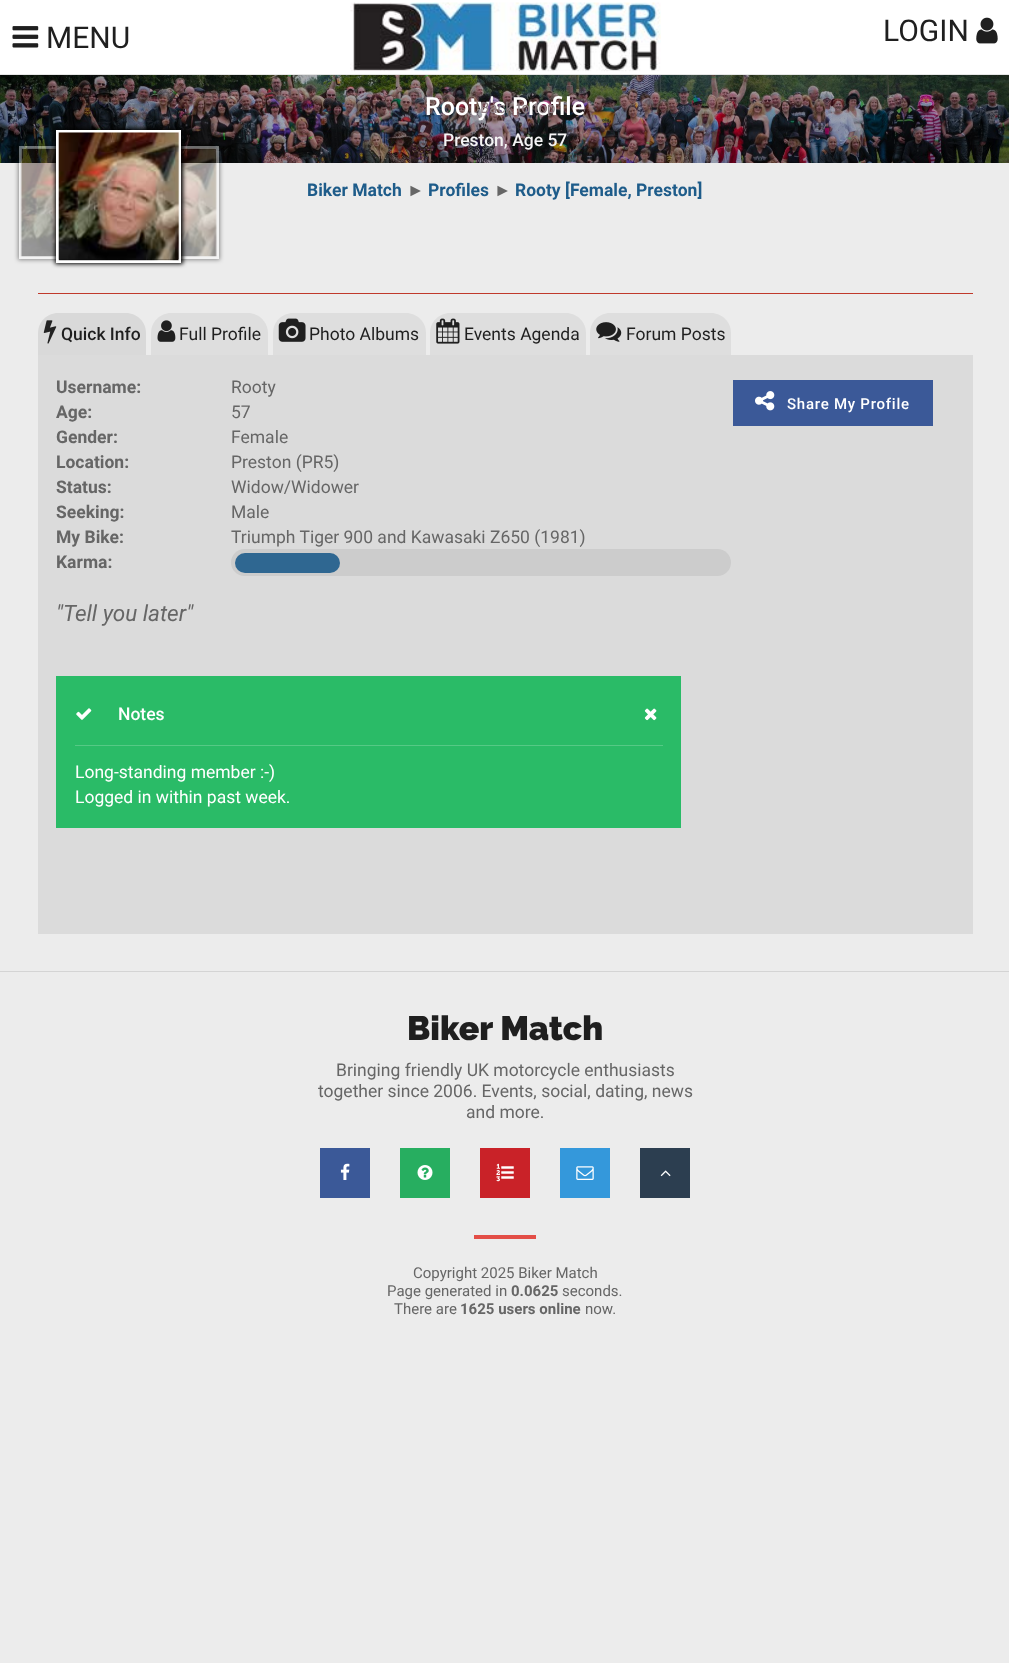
<svg xmlns="http://www.w3.org/2000/svg" width="1009" height="1663" viewBox="0 0 1009 1663">
  <defs>
    <clipPath id="clip1"><path d="M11 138H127V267H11ZM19 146H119V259H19Z" clip-rule="evenodd"/></clipPath>
    <filter id="blur1" x="-50%" y="-200%" width="200%" height="500%"><feGaussianBlur stdDeviation="2"/></filter>
    <clipPath id="clip2"><path d="M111 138H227V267H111ZM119 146H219V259H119Z" clip-rule="evenodd"/></clipPath>
  </defs>
  <rect width="100%" height="100%" fill="#ececec"/>
  <rect x="0" y="0" width="1009" height="74" fill="#ffffff"/>
  <rect x="0" y="74" width="1009" height="1" fill="#e6e6e6"/>
  <image x="12" y="26" width="27" height="22" href="img1.png"/>
  <text x="46" y="48" font-family="Roboto" font-size="30" fill="#1f1f1f">MENU</text>
  <image x="350" y="2" width="311" height="70" href="img2.png"/>
  <text x="883" y="41" font-family="Roboto" font-size="30" fill="#1f1f1f">LOGIN</text>
  <image x="976" y="17" width="22" height="27" href="img3.png"/>
  <image x="0" y="75" width="1009" height="88" href="img4.png"/>
  <text x="425" y="115" font-family="Roboto" font-size="25" font-weight="500" fill="#ffffff">Rooty's Profile</text>
  <text x="443" y="146" font-family="Roboto" font-size="17.5" font-weight="500" fill="#f5f4f5">Preston, Age 57</text>
  <text x="307" y="196" font-family="Roboto" font-size="17.5" font-weight="bold" fill="#1e5c8a">Biker Match</text>
  <text x="407" y="196" font-family="Liberation Sans" font-size="17.5" font-weight="bold" fill="#666666">►</text>
  <text x="428" y="196" font-family="Roboto" font-size="17.5" font-weight="bold" fill="#1e5c8a">Profiles</text>
  <text x="494" y="196" font-family="Liberation Sans" font-size="17.5" font-weight="bold" fill="#666666">►</text>
  <text x="515" y="196" font-family="Roboto" font-size="17.5" font-weight="bold" fill="#1e5c8a">Rooty [Female, Preston]</text>
  <g clip-path="url(#clip1)">
    <rect x="18" y="145" width="102" height="115" fill="#000000" fill-opacity="0.4" filter="url(#blur1)"/>
  </g>
  <rect x="20.5" y="147.5" width="97" height="110" fill="none" stroke="#ffffff" stroke-opacity="0.4" stroke-width="3"/>
  <image x="20" y="148" width="40" height="109" href="img6.png"/>
  <g clip-path="url(#clip2)">
    <rect x="118" y="145" width="102" height="115" fill="#000000" fill-opacity="0.4" filter="url(#blur1)"/>
  </g>
  <rect x="120.5" y="147.5" width="97" height="110" fill="none" stroke="#ffffff" stroke-opacity="0.4" stroke-width="3"/>
  <image x="181" y="148" width="36" height="109" href="img7.png"/>
  <rect x="55" y="129" width="128" height="135" fill="#000000" filter="url(#blur1)"/>
  <rect x="57.5" y="131.5" width="122" height="130" fill="none" stroke="#ffffff" stroke-width="3"/>
  <image x="58" y="132" width="122" height="129" href="img5.png"/>
  <rect x="38" y="293" width="935" height="1" fill="#c0392b"/>
  <path d="M58 313H126C137 313 146 322 146 333V355H38V333C38 322 47 313 58 313Z" fill="#d9d9d9"/>
  <image x="43" y="320" width="14" height="24" href="img8.png"/>
  <text x="61" y="340" font-family="Roboto" font-size="17.5" font-weight="500" fill="#1f1f1f">Quick Info</text>
  <path d="M171 313H248C259 313 268 322 268 333V355H151V333C151 322 160 313 171 313Z" fill="#dedede"/>
  <image x="157" y="320" width="19" height="22" href="img9.png"/>
  <text x="179" y="340" font-family="Roboto" font-size="17.5" fill="#1f1f1f">Full Profile</text>
  <path d="M293 313H406C417 313 426 322 426 333V355H273V333C273 322 282 313 293 313Z" fill="#dedede"/>
  <image x="278" y="318" width="28" height="24" href="img10.png"/>
  <text x="309" y="340" font-family="Roboto" font-size="17.5" fill="#1f1f1f">Photo Albums</text>
  <path d="M450 313H566C577 313 586 322 586 333V355H430V333C430 322 439 313 450 313Z" fill="#dedede"/>
  <image x="436" y="318" width="24" height="26" href="img11.png"/>
  <text x="464" y="340" font-family="Roboto" font-size="17.5" fill="#1f1f1f">Events Agenda</text>
  <path d="M610 313H711C722 313 731 322 731 333V355H590V333C590 322 599 313 610 313Z" fill="#dedede"/>
  <image x="596" y="322" width="26" height="20" href="img12.png"/>
  <text x="626" y="340" font-family="Roboto" font-size="17.5" fill="#1f1f1f">Forum Posts</text>
  <rect x="38" y="355" width="935" height="579" fill="#dbdbdb"/>
  <text x="56" y="393" font-family="Roboto" font-size="17.5" font-weight="bold" fill="#666666">Username:</text>
  <text x="231" y="393" font-family="Roboto" font-size="17.5" fill="#666666">Rooty</text>
  <text x="56" y="418" font-family="Roboto" font-size="17.5" font-weight="bold" fill="#666666">Age:</text>
  <text x="231" y="418" font-family="Roboto" font-size="17.5" fill="#666666">57</text>
  <rect x="733" y="380" width="200" height="46" fill="#3b5998"/>
  <image x="755" y="391" width="20" height="20" href="img13.png"/>
  <text x="787" y="409" font-family="Roboto" font-size="15" font-weight="500" letter-spacing="0.75" fill="#ffffff">Share My Profile</text>
  <text x="56" y="443" font-family="Roboto" font-size="17.5" font-weight="bold" fill="#666666">Gender:</text>
  <text x="231" y="443" font-family="Roboto" font-size="17.5" fill="#666666">Female</text>
  <text x="56" y="468" font-family="Roboto" font-size="17.5" font-weight="bold" fill="#666666">Location:</text>
  <text x="231" y="468" font-family="Roboto" font-size="17.5" fill="#666666">Preston (PR5)</text>
  <text x="56" y="493" font-family="Roboto" font-size="17.5" font-weight="bold" fill="#666666">Status:</text>
  <text x="231" y="493" font-family="Roboto" font-size="17.5" fill="#666666">Widow/Widower</text>
  <text x="56" y="518" font-family="Roboto" font-size="17.5" font-weight="bold" fill="#666666">Seeking:</text>
  <text x="231" y="518" font-family="Roboto" font-size="17.5" fill="#666666">Male</text>
  <text x="56" y="543" font-family="Roboto" font-size="17.5" font-weight="bold" fill="#666666">My Bike:</text>
  <text x="231" y="543" font-family="Roboto" font-size="17.5" fill="#666666">Triumph Tiger 900 and Kawasaki Z650 (1981)</text>
  <text x="56" y="568" font-family="Roboto" font-size="17.5" font-weight="bold" fill="#666666">Karma:</text>
  <rect x="231" y="549" width="500" height="27" rx="13.5" fill="#cccccc"/>
  <rect x="235" y="553" width="105" height="20" rx="10" fill="#2f6791"/>
  <text x="56" y="621" font-family="Roboto" font-size="22.5" font-style="italic" fill="#666666">"Tell you later"</text>
  <rect x="56" y="676" width="625" height="152" fill="#2abb67"/>
  <rect x="75" y="745" width="588" height="1" fill="#55c985"/>
  <image x="76" y="708" width="16" height="12" href="img14.png"/>
  <text x="118" y="720" font-family="Roboto" font-size="17.5" font-weight="500" fill="#ffffff">Notes</text>
  <image x="644" y="708" width="13" height="13" href="img15.png"/>
  <text x="75" y="778" font-family="Roboto" font-size="17.5" fill="#ffffff">Long-standing member :-)</text>
  <text x="75" y="803" font-family="Roboto" font-size="17.5" fill="#ffffff">Logged in within past week.</text>
  <rect x="0" y="971" width="1009" height="1" fill="#d4d4d4"/>
  <text x="407" y="1040" font-family="Raleway" font-size="33.75" font-weight="900" fill="#1f1f1f">Biker Match</text>
  <text x="336" y="1076" font-family="Roboto" font-size="17.5" fill="#666666">Bringing friendly UK motorcycle enthusiasts</text>
  <text x="318" y="1097" font-family="Roboto" font-size="17.5" fill="#666666">together since 2006. Events, social, dating, news</text>
  <text x="466" y="1118" font-family="Roboto" font-size="17.5" fill="#666666">and more.</text>
  <rect x="320" y="1148" width="50" height="50" fill="#3b5998"/>
  <image x="340" y="1163" width="10" height="17" href="img16.png"/>
  <rect x="400" y="1148" width="50" height="50" fill="#27ae60"/>
  <image x="417" y="1165" width="16" height="15" href="img17.png"/>
  <rect x="480" y="1148" width="50" height="50" fill="#c92228"/>
  <image x="496" y="1163" width="18" height="19" href="img18.png"/>
  <rect x="560" y="1148" width="50" height="50" fill="#3498db"/>
  <image x="576" y="1166" width="18" height="14" href="img19.png"/>
  <rect x="640" y="1148" width="50" height="50" fill="#2c3e50"/>
  <image x="660" y="1170" width="11" height="7" href="img20.png"/>
  <rect x="474" y="1235" width="62" height="4" fill="#e34e47"/>
  <text x="413" y="1278" font-family="Roboto" font-size="15" fill="#666666">Copyright 2025 Biker Match</text>
  <text x="387" y="1296" font-family="Roboto" font-size="15" fill="#666666">Page generated in</text>
  <text x="511" y="1296" font-family="Roboto" font-size="15" font-weight="bold" fill="#666666">0.0625</text>
  <text x="562" y="1296" font-family="Roboto" font-size="15" fill="#666666">seconds.</text>
  <text x="394" y="1314" font-family="Roboto" font-size="15" fill="#666666">There are</text>
  <text x="460" y="1314" font-family="Roboto" font-size="15" font-weight="bold" fill="#666666">1625 users online</text>
  <text x="585" y="1314" font-family="Roboto" font-size="15" fill="#666666">now.</text>
  <text x="480" y="113" font-family="Roboto" font-size="15" fill="#8e8085">Back to top</text>
</svg>
